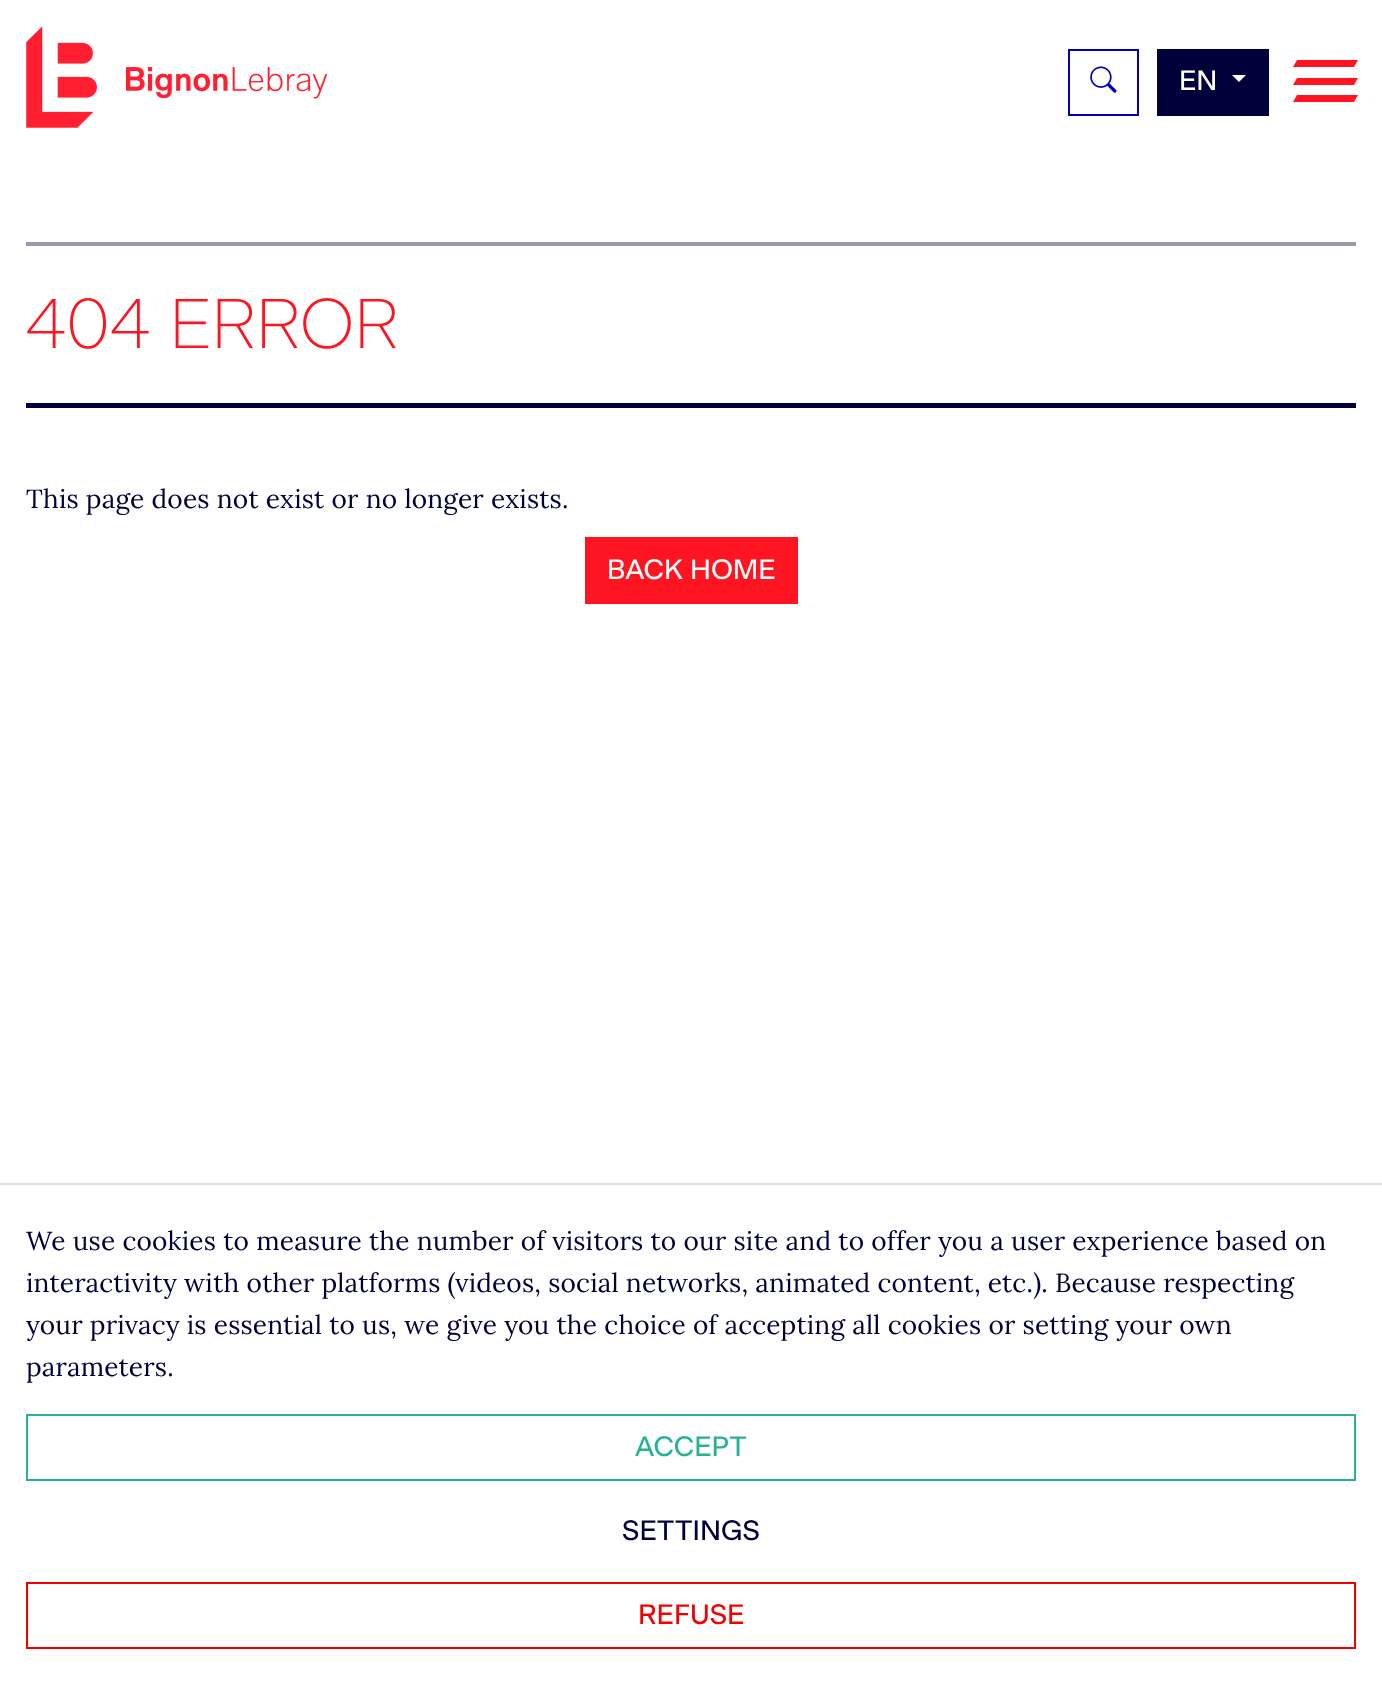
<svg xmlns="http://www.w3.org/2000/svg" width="1382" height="1682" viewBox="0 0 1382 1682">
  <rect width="100%" height="100%" fill="#ffffff"/>
  <image x="26" y="26" width="71" height="102" href="img1.png"/>
  <image x="126" y="67" width="201" height="32" href="img2.png"/>
  <rect x="1069" y="50" width="69" height="65" fill="none" stroke="#0000bb" stroke-width="2"/>
  <image x="1090" y="66" width="27" height="27" href="img3.png"/>
  <rect x="1157" y="49" width="112" height="67" fill="#00003a"/>
  <text x="1179" y="90" font-family="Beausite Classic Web" font-size="28" fill="#ffffff">EN</text>
  <path d="M1232 75H1246L1239 82Z" fill="#ffffff"/>
  <path d="M1297 60H1358L1354 67H1293Z" fill="#ff1521"/>
  <path d="M1297 78H1358L1354 85H1293Z" fill="#ff1521"/>
  <path d="M1297 95H1358L1354 102H1293Z" fill="#ff1521"/>
  <rect x="26" y="242" width="1330" height="4" fill="#9999ae"/>
  <rect x="26" y="403" width="1330" height="5" fill="#00003a"/>
  <text x="26" y="348" font-family="Beausite Classic Web" font-size="70" font-weight="100" letter-spacing="0.18" fill="#ff1521">404 ERROR</text>
  <text x="26" y="508" font-family="Lora" font-size="26.25" letter-spacing="0.18" fill="#00003a">This page does not exist or no longer exists.</text>
  <rect x="585" y="537" width="213" height="67" fill="#ff1521"/>
  <text x="607" y="579" font-family="Beausite Classic Web" font-size="28" fill="#ffffff">BACK HOME</text>
  <rect x="0" y="1183" width="1382" height="2" fill="#dee2e6"/>
  <text x="26" y="1250" font-family="Lora" font-size="26.25" letter-spacing="0.18" fill="#00003a">We use cookies to measure the number of visitors to our site and to offer you a user experience based on</text>
  <text x="26" y="1292" font-family="Lora" font-size="26.25" letter-spacing="0.18" fill="#00003a">interactivity with other platforms (videos, social networks, animated content, etc.). Because respecting</text>
  <text x="26" y="1334" font-family="Lora" font-size="26.25" letter-spacing="0.18" fill="#00003a">your privacy is essential to us, we give you the choice of accepting all cookies or setting your own</text>
  <text x="26" y="1376" font-family="Lora" font-size="26.25" letter-spacing="0.18" fill="#00003a">parameters.</text>
  <rect x="27" y="1415" width="1328" height="65" fill="none" stroke="#27b296" stroke-width="2"/>
  <text x="635" y="1456" font-family="Beausite Classic Web" font-size="28" fill="#27b296">ACCEPT</text>
  <text x="622" y="1540" font-family="Beausite Classic Web" font-size="28" fill="#00003a">SETTINGS</text>
  <rect x="27" y="1583" width="1328" height="65" fill="none" stroke="#f30000" stroke-width="2"/>
  <text x="638" y="1624" font-family="Beausite Classic Web" font-size="28" fill="#f30000">REFUSE</text>
</svg>
